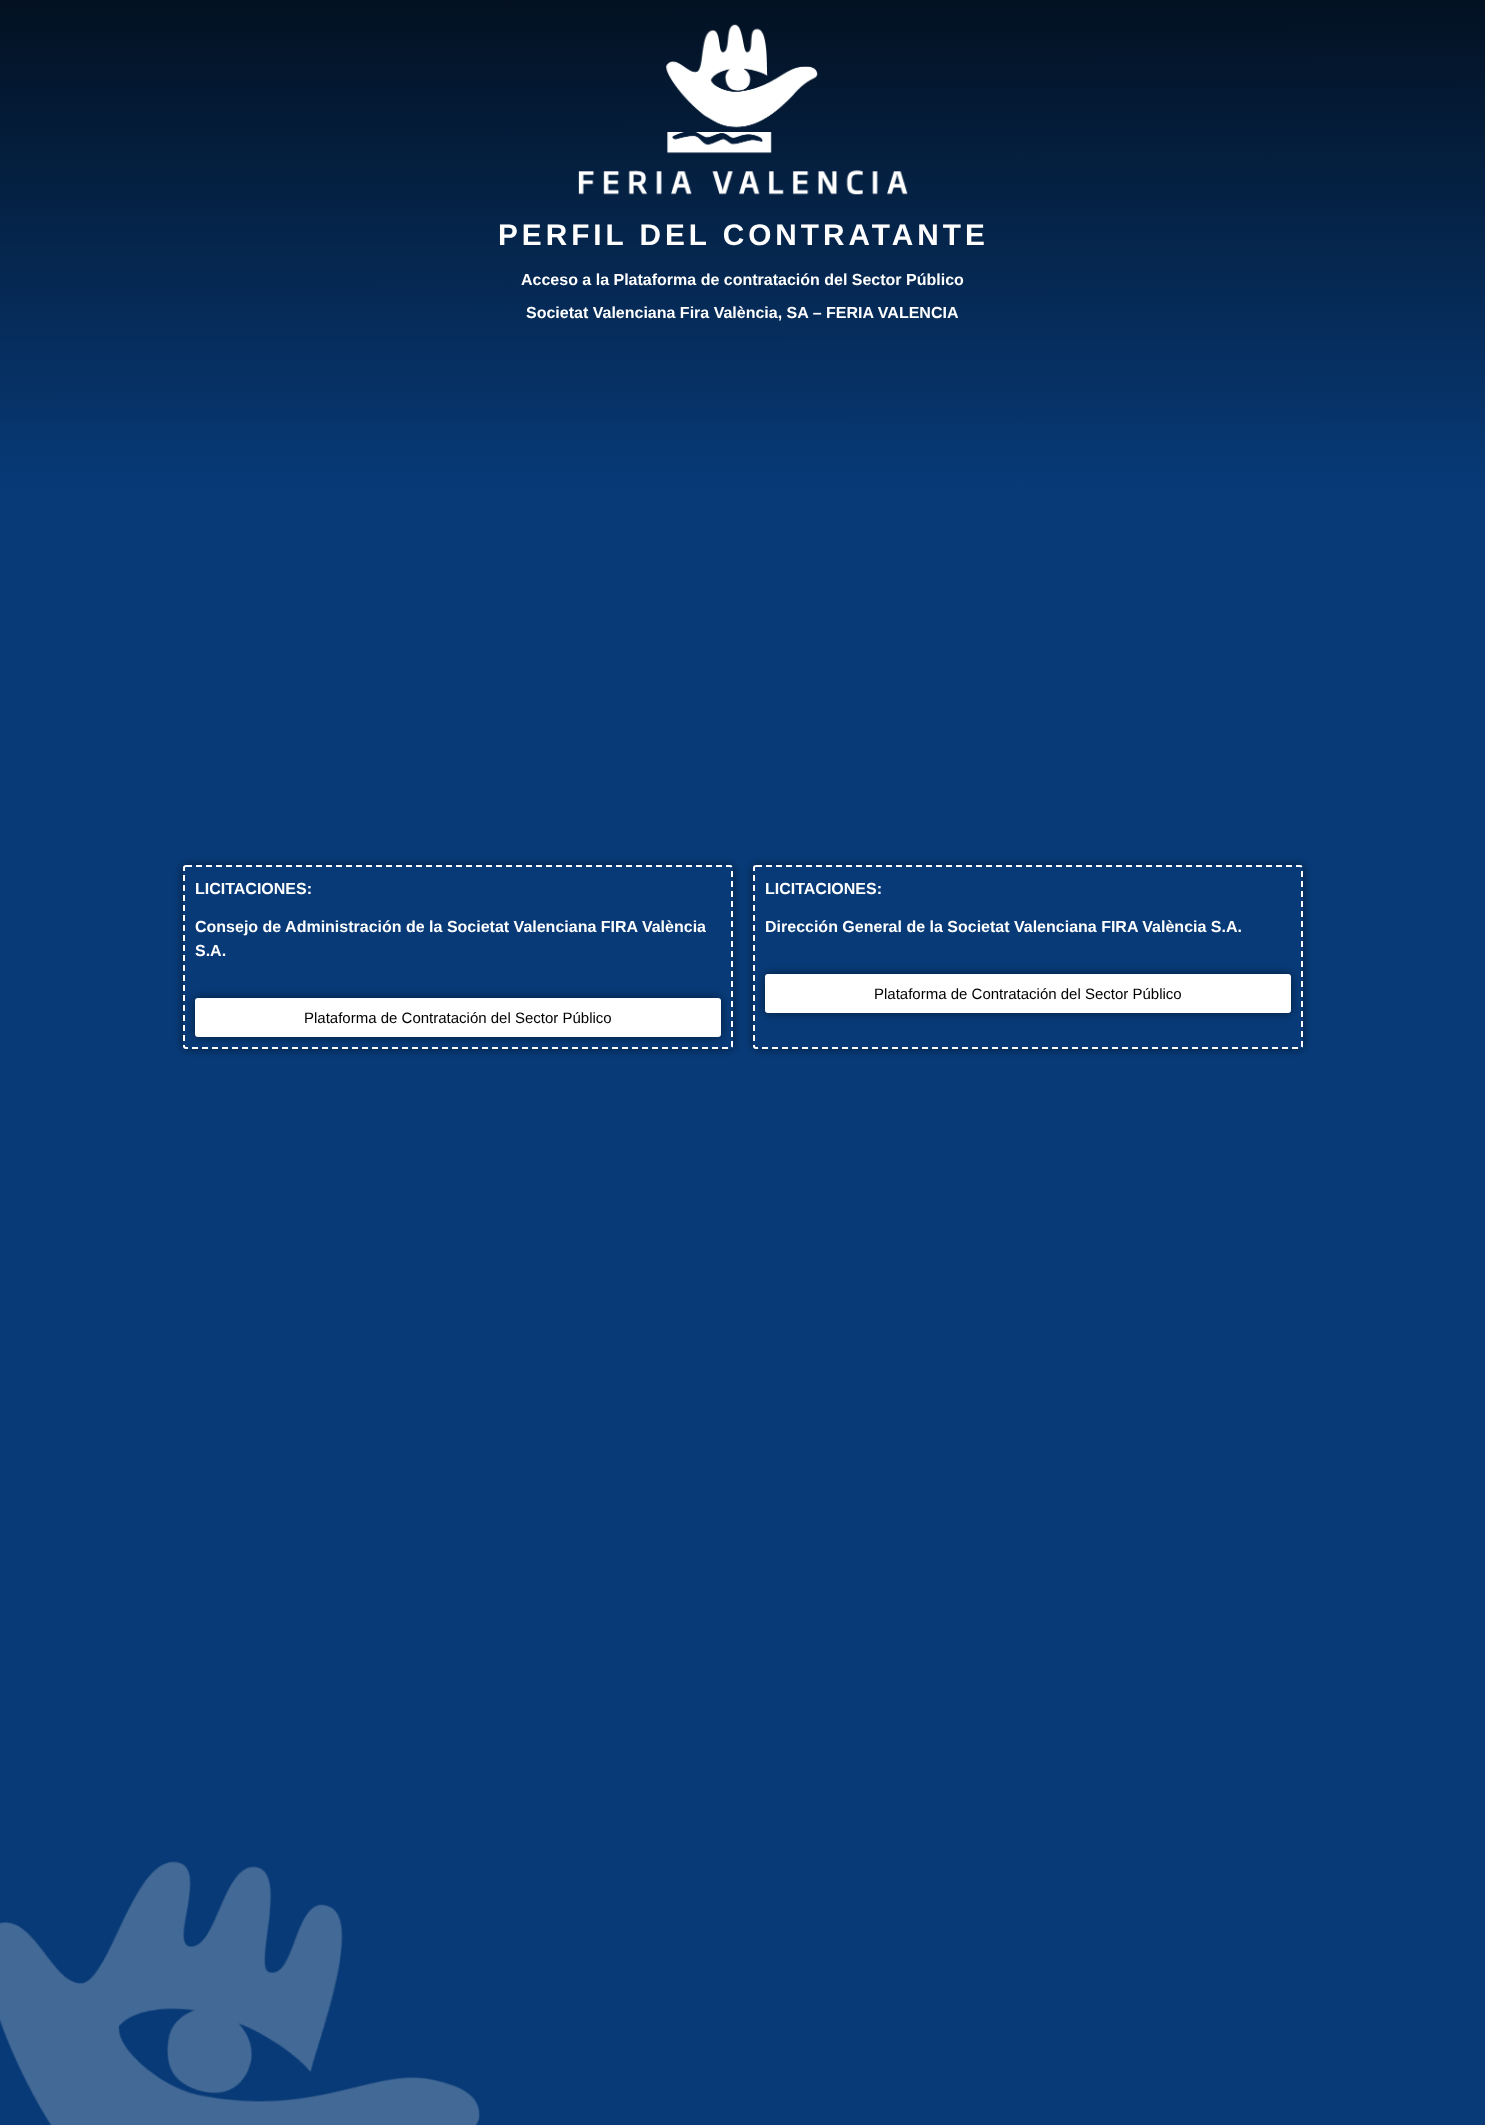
<svg xmlns="http://www.w3.org/2000/svg" width="1485" height="2125" viewBox="0 0 1485 2125">
  <defs>
    <linearGradient id="g1" gradientUnits="userSpaceOnUse" x1="742" y1="0" x2="743" y2="2125"><stop offset="0" stop-color="#031122"/><stop offset="0.23" stop-color="#073a77"/></linearGradient>
    <clipPath id="clip1"><path d="M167 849H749V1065H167ZM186 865H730C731.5 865 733 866.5 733 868V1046C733 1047.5 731.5 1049 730 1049H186C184.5 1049 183 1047.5 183 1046V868C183 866.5 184.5 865 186 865Z" clip-rule="evenodd"/></clipPath>
    <filter id="blur1" x="-50%" y="-200%" width="200%" height="500%"><feGaussianBlur stdDeviation="5"/></filter>
    <clipPath id="clip2"><path d="M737 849H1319V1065H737ZM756 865H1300C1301.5 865 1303 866.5 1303 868V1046C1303 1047.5 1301.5 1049 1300 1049H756C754.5 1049 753 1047.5 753 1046V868C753 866.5 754.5 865 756 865Z" clip-rule="evenodd"/></clipPath>
  </defs>
  <rect width="100%" height="100%" fill="#ffffff"/>
  <rect x="0" y="0" width="1485" height="2125" fill="url(#g1)"/>
  <image x="578" y="24" width="330" height="171" href="img1.png"/>
  <text x="498" y="245" font-family="Liberation Sans" font-size="29.75" font-weight="bold" letter-spacing="4" fill="#ffffff">PERFIL DEL CONTRATANTE</text>
  <text x="521" y="285" font-family="Liberation Sans" font-size="16" font-weight="bold" fill="#ffffff">Acceso a la Plataforma de contratación del Sector Público</text>
  <text x="526" y="318" font-family="Liberation Sans" font-size="16" font-weight="bold" fill="#ffffff">Societat Valenciana Fira València, SA – FERIA VALENCIA</text>
  <image x="0" y="1861" width="480" height="264" href="img2.png"/>
  <g clip-path="url(#clip1)">
    <rect x="183" y="865" width="550" height="184" rx="3" fill="#000000" fill-opacity="0.5" filter="url(#blur1)"/>
  </g>
  <path d="M186 866H730C731 866 732 867 732 868V1046C732 1047 731 1048 730 1048H186C185 1048 184 1047 184 1046V868C184 867 185 866 186 866Z" fill="none" stroke="#ffffff" stroke-width="2" stroke-dasharray="6 4"/>
  <text x="195" y="894" font-family="Liberation Sans" font-size="16" font-weight="bold" fill="#ffffff">LICITACIONES:</text>
  <text x="195" y="932" font-family="Liberation Sans" font-size="16" font-weight="bold" fill="#ffffff">Consejo de Administración de la Societat Valenciana FIRA València</text>
  <text x="195" y="956" font-family="Liberation Sans" font-size="16" font-weight="bold" fill="#ffffff">S.A.</text>
  <rect x="195" y="998" width="526" height="39" rx="3" fill="#000000" fill-opacity="0.5" filter="url(#blur1)"/>
  <rect x="195" y="998" width="526" height="39" rx="3" fill="#ffffff"/>
  <text x="304" y="1023" font-family="Liberation Sans" font-size="15" fill="#000000">Plataforma de Contratación del Sector Público</text>
  <g clip-path="url(#clip2)">
    <rect x="753" y="865" width="550" height="184" rx="3" fill="#000000" fill-opacity="0.5" filter="url(#blur1)"/>
  </g>
  <path d="M756 866H1300C1301 866 1302 867 1302 868V1046C1302 1047 1301 1048 1300 1048H756C755 1048 754 1047 754 1046V868C754 867 755 866 756 866Z" fill="none" stroke="#ffffff" stroke-width="2" stroke-dasharray="6 4"/>
  <text x="765" y="894" font-family="Liberation Sans" font-size="16" font-weight="bold" fill="#ffffff">LICITACIONES:</text>
  <text x="765" y="932" font-family="Liberation Sans" font-size="16" font-weight="bold" fill="#ffffff">Dirección General de la Societat Valenciana FIRA València S.A.</text>
  <rect x="765" y="974" width="526" height="39" rx="3" fill="#000000" fill-opacity="0.5" filter="url(#blur1)"/>
  <rect x="765" y="974" width="526" height="39" rx="3" fill="#ffffff"/>
  <text x="874" y="999" font-family="Liberation Sans" font-size="15" fill="#000000">Plataforma de Contratación del Sector Público</text>
</svg>
